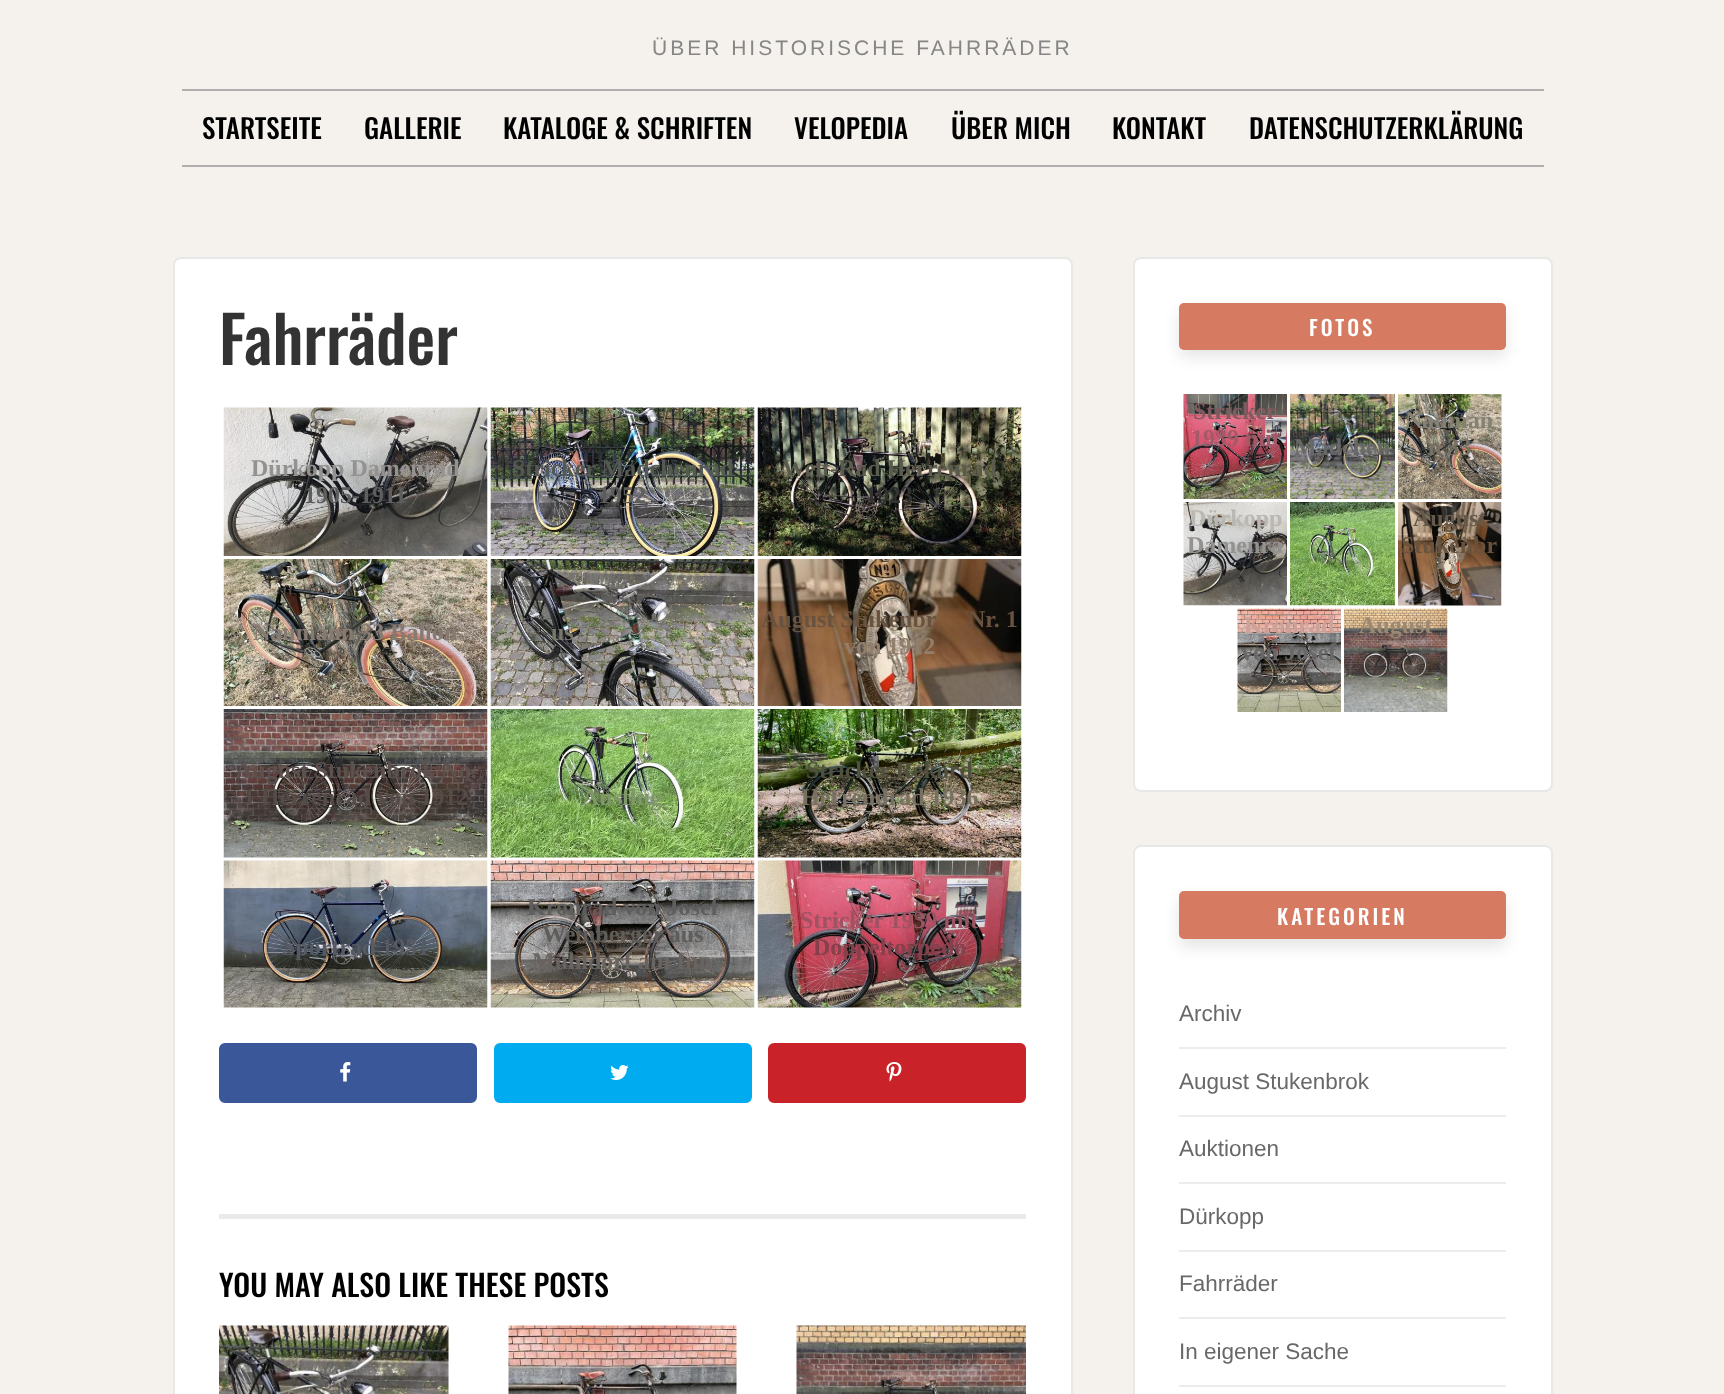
<svg xmlns="http://www.w3.org/2000/svg" width="1724" height="1394" viewBox="0 0 1724 1394">
  <defs>
    <filter id="blur1" x="-50%" y="-200%" width="200%" height="500%"><feGaussianBlur stdDeviation="7.5"/></filter>
  </defs>
  <rect width="100%" height="100%" fill="#f5f2ed"/>
  <text x="652" y="55" font-family="Liberation Sans" font-size="21" letter-spacing="3" fill="#868686">ÜBER HISTORISCHE FAHRRÄDER</text>
  <rect x="182" y="89" width="1362" height="2" fill="#afafaf"/>
  <rect x="182" y="165" width="1362" height="2" fill="#afafaf"/>
  <text x="202" y="139" font-family="Oswald" font-size="27" font-weight="500" fill="#000000">STARTSEITE</text>
  <text x="364" y="139" font-family="Oswald" font-size="27" font-weight="500" fill="#000000">GALLERIE</text>
  <text x="503" y="139" font-family="Oswald" font-size="27" font-weight="500" fill="#000000">KATALOGE &amp; SCHRIFTEN</text>
  <text x="794" y="139" font-family="Oswald" font-size="27" font-weight="500" fill="#000000">VELOPEDIA</text>
  <text x="951" y="139" font-family="Oswald" font-size="27" font-weight="500" fill="#000000">ÜBER MICH</text>
  <text x="1112" y="139" font-family="Oswald" font-size="27" font-weight="500" fill="#000000">KONTAKT</text>
  <text x="1249" y="139" font-family="Oswald" font-size="27" font-weight="500" fill="#000000">DATENSCHUTZERKLÄRUNG</text>
  <rect x="174" y="258" width="898" height="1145" rx="7" fill="#ffffff" stroke="#e8e8e8" stroke-width="2"/>
  <text x="219" y="365" font-family="Oswald" font-size="64.5" font-weight="500" fill="#333333">Fahrräder</text>
  <image x="223" y="407" width="265" height="149" href="img1.png"/>
  <text x="251" y="476" font-family="Liberation Serif" font-size="24" font-weight="bold" fill="#939290">Dürkopp Damenrad</text>
  <text x="304" y="503" font-family="Liberation Serif" font-size="24" font-weight="bold" fill="#5e5e5f">1905-1911</text>
  <image x="490" y="407" width="265" height="149" href="img2.png"/>
  <text x="512" y="476" font-family="Liberation Serif" font-size="24" font-weight="bold" fill="#545953">Stricker Mädchenrad</text>
  <text x="598" y="503" font-family="Liberation Serif" font-size="24" font-weight="bold" fill="#5f5d59">1952</text>
  <image x="757" y="407" width="265" height="149" href="img3.png"/>
  <text x="782" y="476" font-family="Liberation Serif" font-size="24" font-weight="bold" fill="#5b5b4d">Welt-Rad Herrenrad</text>
  <text x="865" y="503" font-family="Liberation Serif" font-size="24" font-weight="bold" fill="#333333">1923</text>
  <image x="223" y="559" width="265" height="147" href="img4.png"/>
  <text x="253" y="640" font-family="Liberation Serif" font-size="24" font-weight="bold" fill="#867a71">Naumann 33 Ballon</text>
  <image x="490" y="559" width="265" height="147" href="img5.png"/>
  <text x="551" y="640" font-family="Liberation Serif" font-size="24" font-weight="bold" fill="#78786d">us</text>
  <image x="757" y="559" width="265" height="147" href="img6.png"/>
  <text x="761" y="627" font-family="Liberation Serif" font-size="24" font-weight="bold" fill="#6a533e">August Stukenbr</text>
  <text x="968" y="627" font-family="Liberation Serif" font-size="24" font-weight="bold" fill="#6a533e">Nr. 1</text>
  <text x="844" y="654" font-family="Liberation Serif" font-size="24" font-weight="bold" fill="#917e6b">von 1912</text>
  <image x="223" y="709" width="265" height="149" href="img7.png"/>
  <text x="235" y="778" font-family="Liberation Serif" font-size="24" font-weight="bold" fill="#5d514e">August Stukenbrok No.</text>
  <text x="243" y="805" font-family="Liberation Serif" font-size="24" font-weight="bold" fill="#554c48">1 Herrenrad von 1912</text>
  <image x="490" y="709" width="265" height="149" href="img8.png"/>
  <text x="582" y="805" font-family="Liberation Serif" font-size="24" font-weight="bold" fill="#7e9867">Ausflug</text>
  <image x="757" y="709" width="265" height="149" href="img9.png"/>
  <text x="806" y="778" font-family="Liberation Serif" font-size="24" font-weight="bold" fill="#4f513e">Stricker Rekord</text>
  <text x="801" y="805" font-family="Liberation Serif" font-size="24" font-weight="bold" fill="#787162">Herrendrad 1936</text>
  <image x="223" y="860" width="265" height="148" href="img10.png"/>
  <text x="282" y="955" font-family="Liberation Serif" font-size="24" font-weight="bold" fill="#565a62">Sportrad 1951</text>
  <image x="490" y="860" width="265" height="148" href="img11.png"/>
  <text x="527" y="915" font-family="Liberation Serif" font-size="24" font-weight="bold" fill="#5e5e5f">Kronrad von Josef</text>
  <text x="542" y="942" font-family="Liberation Serif" font-size="24" font-weight="bold" fill="#5f5d59">Weinberger aus</text>
  <text x="532" y="969" font-family="Liberation Serif" font-size="24" font-weight="bold" fill="#696460">Mühldorf am Inn</text>
  <image x="757" y="860" width="265" height="148" href="img12.png"/>
  <text x="800" y="928" font-family="Liberation Serif" font-size="24" font-weight="bold" fill="#9e5362">Stricker 1939 mit</text>
  <text x="813" y="955" font-family="Liberation Serif" font-size="24" font-weight="bold" fill="#85404c">Doppeltorpedo</text>
  <rect x="220.5" y="1044.5" width="255" height="57" rx="4.5" fill="#3a579a" stroke="#3a579a" stroke-width="3"/>
  <image x="340" y="1062" width="11" height="20" href="img13.png"/>
  <rect x="495.5" y="1044.5" width="255" height="57" rx="4.5" fill="#00abf0" stroke="#00abf0" stroke-width="3"/>
  <image x="610" y="1065" width="19" height="15" href="img14.png"/>
  <rect x="769.5" y="1044.5" width="255" height="57" rx="4.5" fill="#c92228" stroke="#c92228" stroke-width="3"/>
  <image x="886" y="1062" width="16" height="20" href="img15.png"/>
  <rect x="219" y="1214" width="807" height="5" fill="#eaeaea"/>
  <text x="219" y="1297" font-family="Oswald" font-size="30" font-weight="500" fill="#000000">YOU MAY ALSO LIKE THESE POSTS</text>
  <image x="219" y="1325" width="230" height="69" href="img16.png"/>
  <image x="508" y="1325" width="229" height="69" href="img17.png"/>
  <image x="796" y="1325" width="230" height="69" href="img18.png"/>
  <rect x="1134" y="258" width="418" height="533" rx="7" fill="#ffffff" stroke="#e8e8e8" stroke-width="2"/>
  <rect x="1179" y="311" width="327" height="46" rx="5" fill="#000000" fill-opacity="0.1" filter="url(#blur1)"/>
  <rect x="1179" y="303" width="327" height="47" rx="5" fill="#d67a61"/>
  <text x="1309" y="336" font-family="Oswald" font-size="21" font-weight="500" letter-spacing="3" fill="#ffffff">FOTOS</text>
  <image x="1183" y="394" width="104" height="105" href="img19.png"/>
  <text x="1193" y="419" font-family="Liberation Serif" font-size="24" font-weight="bold" fill="#815a5f">Stricker</text>
  <text x="1191" y="446" font-family="Liberation Serif" font-size="24" font-weight="bold" fill="#a45968">1939 mit</text>
  <image x="1290" y="394" width="105" height="105" href="img20.png"/>
  <text x="1294" y="455" font-family="Liberation Serif" font-size="24" font-weight="bold" fill="#686868">Mädchen</text>
  <image x="1398" y="394" width="104" height="105" href="img21.png"/>
  <text x="1405" y="428" font-family="Liberation Serif" font-size="24" font-weight="bold" fill="#848073">Nauman</text>
  <text x="1428" y="455" font-family="Liberation Serif" font-size="24" font-weight="bold" fill="#787162">n 33</text>
  <image x="1183" y="502" width="104" height="104" href="img22.png"/>
  <text x="1189" y="526" font-family="Liberation Serif" font-size="24" font-weight="bold" fill="#bab8b3">Dürkopp</text>
  <text x="1187" y="553" font-family="Liberation Serif" font-size="24" font-weight="bold" fill="#939290">Damenra</text>
  <image x="1290" y="502" width="105" height="104" href="img23.png"/>
  <image x="1398" y="502" width="104" height="104" href="img24.png"/>
  <text x="1413" y="526" font-family="Liberation Serif" font-size="24" font-weight="bold" fill="#67594a">August</text>
  <text x="1401" y="553" font-family="Liberation Serif" font-size="24" font-weight="bold" fill="#6a533e">Stukenbr</text>
  <text x="1466" y="580" font-family="Liberation Serif" font-size="24" font-weight="bold" fill="#856954">.</text>
  <image x="1237" y="608" width="104" height="104" href="img25.png"/>
  <text x="1244" y="633" font-family="Liberation Serif" font-size="24" font-weight="bold" fill="#cda198">Kronrad</text>
  <text x="1241" y="660" font-family="Liberation Serif" font-size="24" font-weight="bold" fill="#686868">von Josef</text>
  <image x="1344" y="608" width="104" height="104" href="img26.png"/>
  <text x="1359" y="633" font-family="Liberation Serif" font-size="24" font-weight="bold" fill="#9b8872">August</text>
  <rect x="1134" y="846" width="418" height="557" rx="7" fill="#ffffff" stroke="#e8e8e8" stroke-width="2"/>
  <rect x="1179" y="899" width="327" height="48" rx="5" fill="#000000" fill-opacity="0.1" filter="url(#blur1)"/>
  <rect x="1179" y="891" width="327" height="48" rx="5" fill="#d67a61"/>
  <text x="1277" y="925" font-family="Oswald" font-size="21" font-weight="500" letter-spacing="3" fill="#ffffff">KATEGORIEN</text>
  <rect x="1179" y="1047" width="327" height="2" fill="#ececec"/>
  <text x="1179" y="1021" font-family="Liberation Sans" font-size="22.5" fill="#686868">Archiv</text>
  <rect x="1179" y="1115" width="327" height="2" fill="#ececec"/>
  <text x="1179" y="1089" font-family="Liberation Sans" font-size="22.5" fill="#686868">August Stukenbrok</text>
  <rect x="1179" y="1182" width="327" height="2" fill="#ececec"/>
  <text x="1179" y="1156" font-family="Liberation Sans" font-size="22.5" fill="#686868">Auktionen</text>
  <rect x="1179" y="1250" width="327" height="2" fill="#ececec"/>
  <text x="1179" y="1224" font-family="Liberation Sans" font-size="22.5" fill="#686868">Dürkopp</text>
  <rect x="1179" y="1317" width="327" height="2" fill="#ececec"/>
  <text x="1179" y="1291" font-family="Liberation Sans" font-size="22.5" fill="#686868">Fahrräder</text>
  <rect x="1179" y="1385" width="327" height="2" fill="#ececec"/>
  <text x="1179" y="1359" font-family="Liberation Sans" font-size="22.5" fill="#686868">In eigener Sache</text>
</svg>
